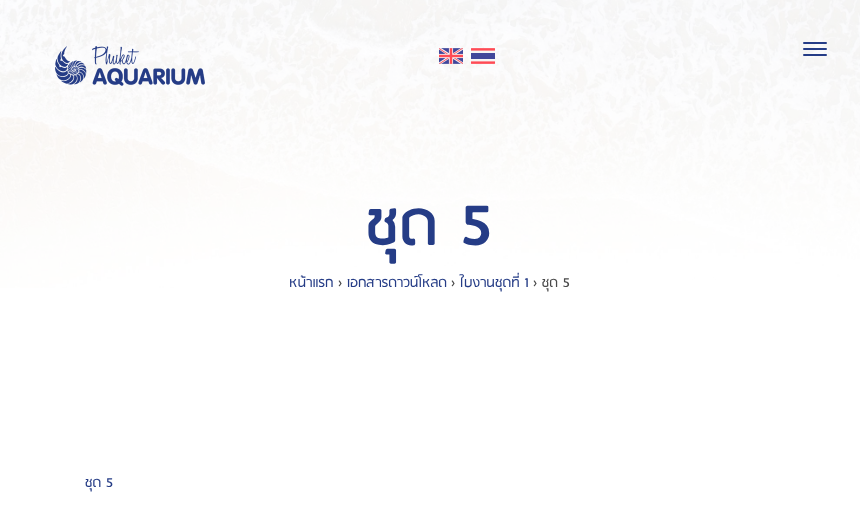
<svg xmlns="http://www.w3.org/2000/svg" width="860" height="510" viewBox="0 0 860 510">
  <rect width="100%" height="100%" fill="#ffffff"/>
  <image x="0" y="0" width="860" height="288" href="img1.png"/>
  <image x="55" y="46" width="150" height="40" href="img2.png"/>
  <image x="439" y="48" width="24" height="16" href="img3.png"/>
  <image x="471" y="48" width="24" height="16" href="img4.png"/>
  <rect x="803" y="42" width="24" height="2" rx="1" fill="#253c86"/>
  <rect x="803" y="48" width="24" height="2" rx="1" fill="#253c86"/>
  <rect x="803" y="54" width="24" height="2" rx="1" fill="#253c86"/>
  <text x="366" y="245" font-family="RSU" font-size="72" font-weight="bold" fill="#253c86">ชุด 5</text>
  <text x="289" y="287" font-family="RSU" font-size="16" fill="#253c86">หน้าแรก</text>
  <text x="338" y="287" font-family="RSU" font-size="16" fill="#4a4a4a">›</text>
  <text x="347" y="287" font-family="RSU" font-size="16" fill="#253c86">เอกสารดาวน์โหลด</text>
  <text x="451" y="287" font-family="RSU" font-size="16" fill="#4a4a4a">›</text>
  <text x="460" y="287" font-family="RSU" font-size="16" fill="#253c86">ใบงานชุดที่ 1</text>
  <text x="533" y="287" font-family="RSU" font-size="16" fill="#4a4a4a">› ชุด 5</text>
  <text x="85" y="487" font-family="RSU" font-size="16" fill="#253c86">ชุด 5</text>
</svg>
